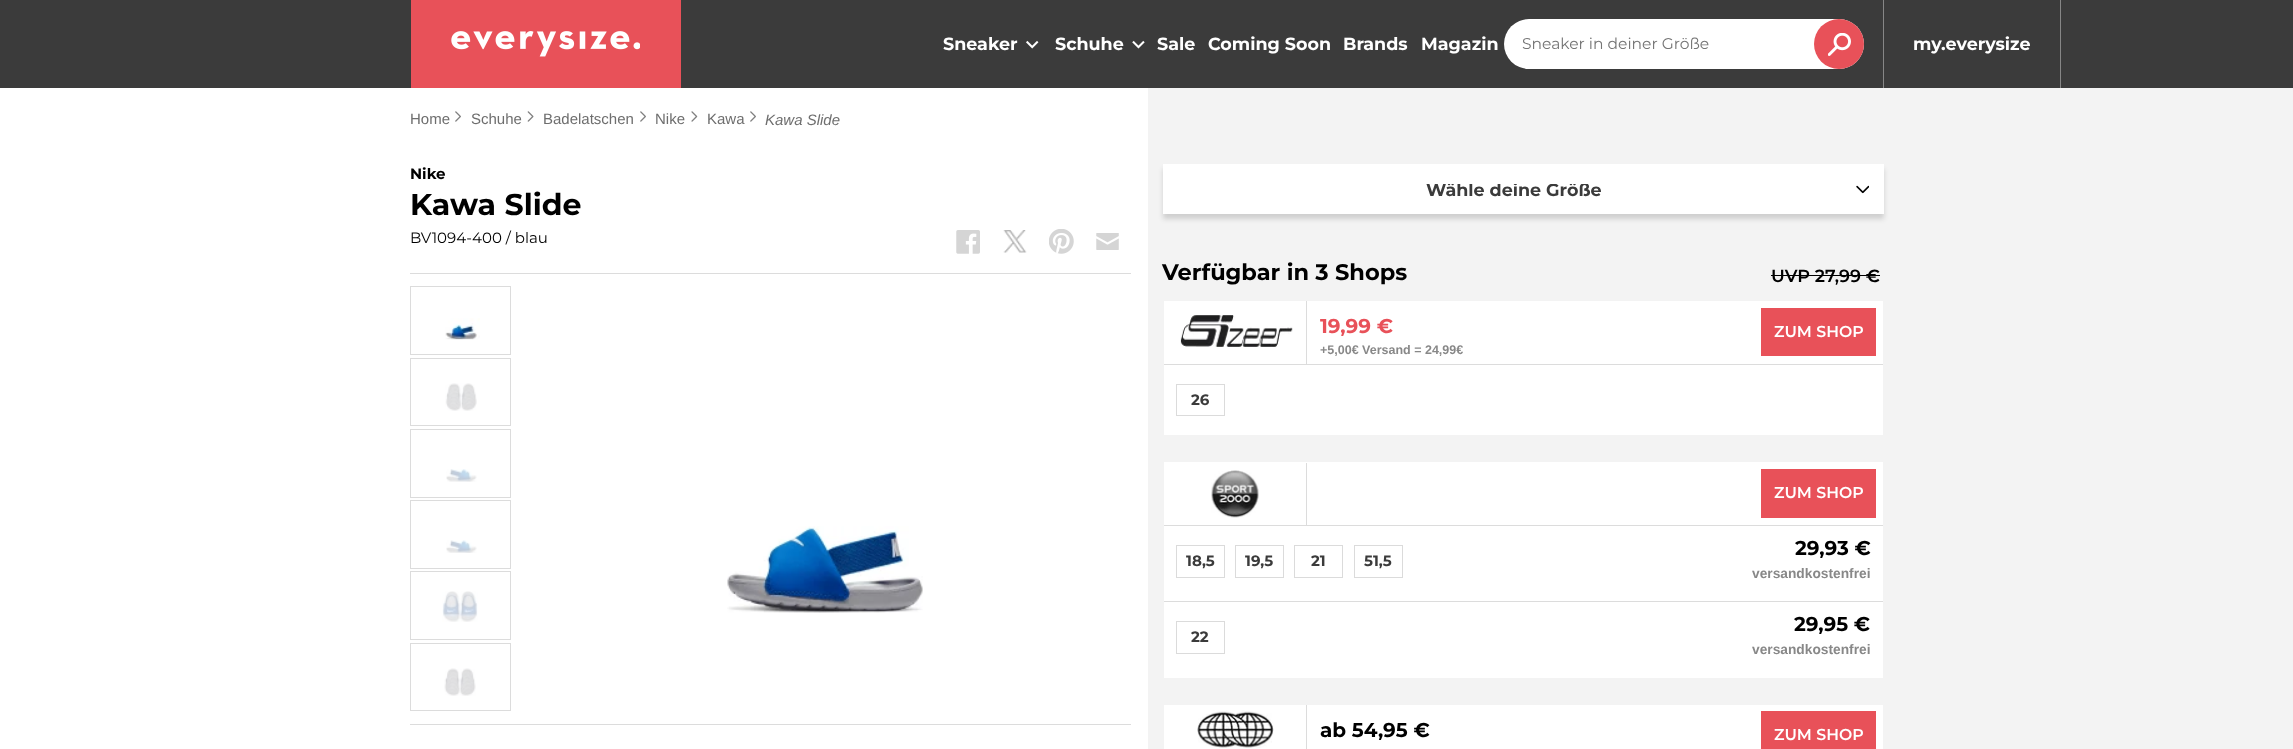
<svg xmlns="http://www.w3.org/2000/svg" width="2293" height="749" viewBox="0 0 2293 749">
  <defs>
    <filter id="blur1" x="-50%" y="-200%" width="200%" height="500%"><feGaussianBlur stdDeviation="2.5"/></filter>
    <clipPath id="clip1"><rect x="1175" y="184" width="679" height="14"/></clipPath>
  </defs>
  <rect width="100%" height="100%" fill="#f3f3f3"/>
  <rect x="0" y="0" width="2293" height="88" fill="#3b3b3b"/>
  <rect x="411" y="0" width="270" height="88" fill="#e85159"/>
  <image x="451" y="31" width="189" height="26" href="img1.png"/>
  <text x="943" y="50" font-family="Montserrat" font-size="17.5" font-weight="bold" fill="#ffffff">Sneaker</text>
  <image x="1026" y="40" width="13" height="9" href="img2.png"/>
  <text x="1055" y="50" font-family="Montserrat" font-size="17.5" font-weight="bold" fill="#ffffff">Schuhe</text>
  <image x="1132" y="40" width="13" height="9" href="img3.png"/>
  <text x="1157" y="50" font-family="Montserrat" font-size="17.5" font-weight="bold" fill="#ffffff">Sale</text>
  <text x="1208" y="50" font-family="Montserrat" font-size="17.5" font-weight="bold" fill="#ffffff">Coming Soon</text>
  <text x="1343" y="50" font-family="Montserrat" font-size="17.5" font-weight="bold" fill="#ffffff">Brands</text>
  <text x="1421" y="50" font-family="Montserrat" font-size="17.5" font-weight="bold" fill="#ffffff">Magazin</text>
  <rect x="1504" y="19" width="360" height="50" rx="25" fill="#ffffff"/>
  <text x="1522" y="49" font-family="Montserrat" font-size="15.5" fill="#757575">Sneaker in deiner Größe</text>
  <circle cx="1839" cy="44" r="25" fill="#e85159"/>
  <image x="1828" y="33" width="23" height="23" href="img4.png"/>
  <rect x="2060" y="0" width="1" height="88" fill="#868686"/>
  <rect x="1883" y="0" width="1" height="88" fill="#868686"/>
  <text x="1913" y="50" font-family="Montserrat" font-size="17.5" font-weight="bold" fill="#ffffff">my.everysize</text>
  <rect x="0" y="88" width="1148" height="661" fill="#ffffff"/>
  <text x="410" y="124" font-family="Liberation Sans" font-size="15" fill="#6e6e6e">Home</text>
  <image x="455" y="111" width="6" height="11" href="img5.png"/>
  <text x="471" y="124" font-family="Liberation Sans" font-size="15" fill="#6e6e6e">Schuhe</text>
  <image x="527" y="111" width="7" height="11" href="img6.png"/>
  <text x="543" y="124" font-family="Liberation Sans" font-size="15" fill="#6e6e6e">Badelatschen</text>
  <image x="640" y="111" width="6" height="11" href="img5.png"/>
  <text x="655" y="124" font-family="Liberation Sans" font-size="15" fill="#6e6e6e">Nike</text>
  <image x="691" y="111" width="7" height="11" href="img7.png"/>
  <text x="707" y="124" font-family="Liberation Sans" font-size="15" fill="#6e6e6e">Kawa</text>
  <image x="750" y="111" width="6" height="11" href="img5.png"/>
  <text x="765" y="125" font-family="Liberation Sans" font-size="15" font-style="italic" fill="#6e6e6e">Kawa Slide</text>
  <text x="410" y="179" font-family="Montserrat" font-size="15" font-weight="bold" fill="#000000">Nike</text>
  <text x="410" y="215" font-family="Montserrat" font-size="30" font-weight="bold" fill="#000000">Kawa Slide</text>
  <text x="410" y="243" font-family="Montserrat" font-size="15" fill="#000000">BV1094-400 / blau</text>
  <image x="956" y="230" width="24" height="24" href="img8.png"/>
  <image x="1003" y="230" width="24" height="23" href="img9.png"/>
  <image x="1049" y="229" width="25" height="25" href="img10.png"/>
  <image x="1096" y="233" width="23" height="17" href="img11.png"/>
  <rect x="410" y="273" width="721" height="1" fill="#dcdcdc"/>
  <rect x="410" y="724" width="721" height="1" fill="#dcdcdc"/>
  <rect x="410.5" y="286.5" width="100" height="68" fill="none" stroke="#dcdcdc"/>
  <image x="445" y="318" width="35" height="22" href="img12.png"/>
  <rect x="410.5" y="358.5" width="100" height="67" fill="none" stroke="#dcdcdc"/>
  <image x="445" y="383" width="32" height="28" href="img13.png"/>
  <rect x="410.5" y="429.5" width="100" height="68" fill="none" stroke="#dcdcdc"/>
  <image x="446" y="469" width="31" height="13" href="img14.png"/>
  <rect x="410.5" y="500.5" width="100" height="68" fill="none" stroke="#dcdcdc"/>
  <image x="446" y="540" width="31" height="13" href="img15.png"/>
  <rect x="410.5" y="571.5" width="100" height="68" fill="none" stroke="#dcdcdc"/>
  <image x="442" y="591" width="36" height="31" href="img16.png"/>
  <rect x="410.5" y="643.5" width="100" height="67" fill="none" stroke="#dcdcdc"/>
  <image x="444" y="668" width="32" height="28" href="img17.png"/>
  <image x="727" y="526" width="196" height="87" href="img18.png"/>
  <rect x="1163" y="169" width="721" height="50" fill="#000000" fill-opacity="0.15" filter="url(#blur1)"/>
  <rect x="1163" y="164" width="721" height="50" fill="#ffffff"/>
  <g clip-path="url(#clip1)">
    <text x="1426" y="196" font-family="Montserrat" font-size="17.5" font-weight="bold" fill="#3b3b3b">Wähle deine Größe</text>
  </g>
  <image x="1856" y="185" width="13" height="9" href="img19.png"/>
  <text x="1162" y="280" font-family="Montserrat" font-size="22.5" font-weight="bold" fill="#000000">Verfügbar in 3 Shops</text>
  <text x="1771" y="282" font-family="Montserrat" font-size="17.5" font-weight="600" fill="#000000">UVP 27,99 €</text>
  <rect x="1771" y="275" width="109" height="1" fill="#000000"/>
  <rect x="1164" y="301" width="719" height="134" fill="#ffffff"/>
  <rect x="1306" y="301" width="1" height="63" fill="#dcdcdc"/>
  <image x="1180" y="315" width="113" height="32" href="img20.png"/>
  <text x="1320" y="333" font-family="Montserrat" font-size="20" font-weight="bold" fill="#e85159">19,99 €</text>
  <text x="1320" y="354" font-family="Liberation Sans" font-size="12.5" font-weight="bold" fill="#888888">+5,00€ Versand = 24,99€</text>
  <rect x="1761" y="308" width="115" height="48" fill="#e85159"/>
  <text x="1774" y="337" font-family="Montserrat" font-size="15.75" font-weight="600" fill="#ffffff">ZUM SHOP</text>
  <rect x="1164" y="364" width="719" height="1" fill="#dcdcdc"/>
  <rect x="1176.5" y="384.5" width="48" height="31" fill="none" stroke="#dbdbdb"/>
  <text x="1191" y="405" font-family="Montserrat" font-size="15" font-weight="bold" fill="#3b3b3b">26</text>
  <rect x="1164" y="462" width="719" height="216" fill="#ffffff"/>
  <rect x="1306" y="463" width="1" height="62" fill="#dcdcdc"/>
  <image x="1211" y="470" width="48" height="48" href="img21.png"/>
  <rect x="1761" y="469" width="115" height="49" fill="#e85159"/>
  <text x="1774" y="498" font-family="Montserrat" font-size="15.75" font-weight="600" fill="#ffffff">ZUM SHOP</text>
  <rect x="1164" y="525" width="719" height="1" fill="#dcdcdc"/>
  <rect x="1176.5" y="545.5" width="48" height="32" fill="none" stroke="#dbdbdb"/>
  <text x="1186" y="566" font-family="Montserrat" font-size="15" font-weight="bold" fill="#3b3b3b">18,5</text>
  <rect x="1235.5" y="545.5" width="48" height="32" fill="none" stroke="#dbdbdb"/>
  <text x="1245" y="566" font-family="Montserrat" font-size="15" font-weight="bold" fill="#3b3b3b">19,5</text>
  <rect x="1294.5" y="545.5" width="48" height="32" fill="none" stroke="#dbdbdb"/>
  <text x="1311" y="566" font-family="Montserrat" font-size="15" font-weight="bold" fill="#3b3b3b">21</text>
  <rect x="1354.5" y="545.5" width="48" height="32" fill="none" stroke="#dbdbdb"/>
  <text x="1364" y="566" font-family="Montserrat" font-size="15" font-weight="bold" fill="#3b3b3b">51,5</text>
  <text x="1795" y="555" font-family="Montserrat" font-size="20" font-weight="bold" fill="#000000">29,93 €</text>
  <text x="1752" y="578" font-family="Liberation Sans" font-size="13.75" font-weight="bold" fill="#888888">versandkostenfrei</text>
  <rect x="1164" y="601" width="719" height="1" fill="#dcdcdc"/>
  <rect x="1176.5" y="621.5" width="48" height="32" fill="none" stroke="#dbdbdb"/>
  <text x="1191" y="642" font-family="Montserrat" font-size="15" font-weight="bold" fill="#3b3b3b">22</text>
  <text x="1794" y="631" font-family="Montserrat" font-size="20" font-weight="bold" fill="#000000">29,95 €</text>
  <text x="1752" y="654" font-family="Liberation Sans" font-size="13.75" font-weight="bold" fill="#888888">versandkostenfrei</text>
  <rect x="1164" y="705" width="719" height="44" fill="#ffffff"/>
  <rect x="1306" y="705" width="1" height="44" fill="#dcdcdc"/>
  <image x="1197" y="710" width="77" height="38" href="img22.png"/>
  <text x="1320" y="737" font-family="Montserrat" font-size="20" font-weight="bold" fill="#000000">ab 54,95 €</text>
  <rect x="1761" y="711" width="115" height="38" fill="#e85159"/>
  <text x="1774" y="740" font-family="Montserrat" font-size="15.75" font-weight="600" fill="#ffffff">ZUM SHOP</text>
</svg>
